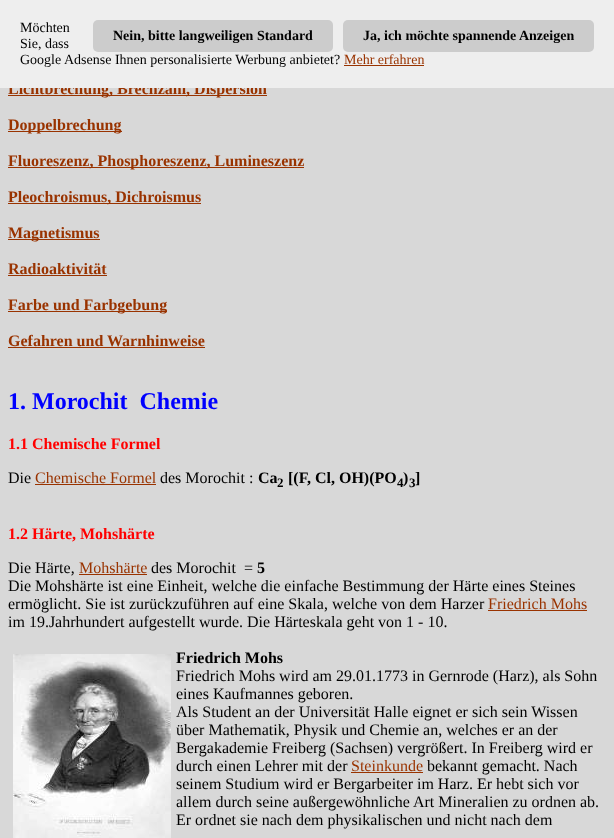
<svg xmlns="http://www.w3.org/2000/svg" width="614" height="838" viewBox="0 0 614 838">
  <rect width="100%" height="100%" fill="#d8d8d8"/>
  <rect x="8" y="95" width="259" height="1" fill="#993300"/>
  <text x="8" y="94" font-family="Liberation Serif" font-size="16" font-weight="bold" fill="#993300">Lichtbrechung, Brechzahl, Dispersion</text>
  <rect x="0" y="0" width="614" height="88" fill="#eeeeee"/>
  <text x="20" y="32" font-family="Liberation Serif" font-size="14" fill="#000000">Möchten</text>
  <text x="20" y="48" font-family="Liberation Serif" font-size="14" fill="#000000">Sie, dass</text>
  <text x="20" y="64" font-family="Liberation Serif" font-size="14" fill="#000000">Google Adsense Ihnen personalisierte Werbung anbietet?</text>
  <text x="344" y="64" font-family="Liberation Serif" font-size="14" fill="#993300">Mehr erfahren</text>
  <rect x="344" y="65" width="80" height="1" fill="#993300"/>
  <rect x="93" y="20" width="240" height="32" rx="5" fill="#cccccc"/>
  <text x="113" y="40" font-family="Liberation Serif" font-size="14" font-weight="bold" fill="#000000">Nein, bitte langweiligen Standard</text>
  <rect x="343" y="20" width="251" height="32" rx="5" fill="#cccccc"/>
  <text x="363" y="40" font-family="Liberation Serif" font-size="14" font-weight="bold" fill="#000000">Ja, ich möchte spannende Anzeigen</text>
  <rect x="8" y="131" width="114" height="1" fill="#993300"/>
  <text x="8" y="130" font-family="Liberation Serif" font-size="16" font-weight="bold" fill="#993300">Doppelbrechung</text>
  <rect x="8" y="167" width="296" height="1" fill="#993300"/>
  <text x="8" y="166" font-family="Liberation Serif" font-size="16" font-weight="bold" fill="#993300">Fluoreszenz, Phosphoreszenz, Lumineszenz</text>
  <rect x="8" y="203" width="193" height="1" fill="#993300"/>
  <text x="8" y="202" font-family="Liberation Serif" font-size="16" font-weight="bold" fill="#993300">Pleochroismus, Dichroismus</text>
  <rect x="8" y="239" width="92" height="1" fill="#993300"/>
  <text x="8" y="238" font-family="Liberation Serif" font-size="16" font-weight="bold" fill="#993300">Magnetismus</text>
  <text x="8" y="274" font-family="Liberation Serif" font-size="16" font-weight="bold" fill="#993300">Radioaktivität</text>
  <rect x="8" y="275" width="99" height="1" fill="#993300"/>
  <rect x="8" y="311" width="159" height="1" fill="#993300"/>
  <text x="8" y="310" font-family="Liberation Serif" font-size="16" font-weight="bold" fill="#993300">Farbe und Farbgebung</text>
  <text x="8" y="346" font-family="Liberation Serif" font-size="16" font-weight="bold" fill="#993300">Gefahren und Warnhinweise</text>
  <rect x="8" y="347" width="197" height="1" fill="#993300"/>
  <text x="8" y="409" font-family="Liberation Serif" font-size="24" font-weight="bold" fill="#0000ff" xml:space="preserve">1. Morochit  Chemie</text>
  <text x="8" y="449" font-family="Liberation Serif" font-size="16" font-weight="bold" fill="#ff0000">1.1 Chemische Formel</text>
  <text x="8" y="483" font-family="Liberation Serif" font-size="16" fill="#000000">Die</text>
  <text x="35" y="483" font-family="Liberation Serif" font-size="16" fill="#993300">Chemische Formel</text>
  <rect x="35" y="484" width="121" height="1" fill="#993300"/>
  <text x="160" y="483" font-family="Liberation Serif" font-size="16" fill="#000000">des Morochit :</text>
  <text x="258" y="483" font-family="Liberation Serif" font-size="16" font-weight="bold" fill="#000000">Ca</text>
  <text x="277" y="487" font-family="Liberation Serif" font-size="13" font-weight="bold" fill="#000000">2</text>
  <text x="288" y="483" font-family="Liberation Serif" font-size="16" font-weight="bold" fill="#000000">[(F, Cl, OH)(PO</text>
  <text x="397" y="487" font-family="Liberation Serif" font-size="13" font-weight="bold" fill="#000000">4</text>
  <text x="403" y="483" font-family="Liberation Serif" font-size="16" font-weight="bold" fill="#000000">)</text>
  <text x="409" y="487" font-family="Liberation Serif" font-size="13" font-weight="bold" fill="#000000">3</text>
  <text x="415" y="483" font-family="Liberation Serif" font-size="16" font-weight="bold" fill="#000000">]</text>
  <text x="8" y="539" font-family="Liberation Serif" font-size="16" font-weight="bold" fill="#ff0000">1.2 Härte, Mohshärte</text>
  <text x="8" y="573" font-family="Liberation Serif" font-size="16" fill="#000000">Die Härte,</text>
  <text x="79" y="573" font-family="Liberation Serif" font-size="16" fill="#993300">Mohshärte</text>
  <rect x="79" y="574" width="68" height="1" fill="#993300"/>
  <text x="151" y="573" font-family="Liberation Serif" font-size="16" fill="#000000" xml:space="preserve">des Morochit  =</text>
  <text x="257" y="573" font-family="Liberation Serif" font-size="16" font-weight="bold" fill="#000000">5</text>
  <text x="8" y="591" font-family="Liberation Serif" font-size="16" fill="#000000">Die Mohshärte ist eine Einheit, welche die einfache Bestimmung der Härte eines Steines</text>
  <text x="8" y="609" font-family="Liberation Serif" font-size="16" fill="#000000">ermöglicht. Sie ist zurückzuführen auf eine Skala, welche von dem Harzer</text>
  <text x="488" y="609" font-family="Liberation Serif" font-size="16" fill="#993300">Friedrich Mohs</text>
  <rect x="488" y="610" width="99" height="1" fill="#993300"/>
  <text x="8" y="627" font-family="Liberation Serif" font-size="16" fill="#000000">im 19.Jahrhundert aufgestellt wurde. Die Härteskala geht von 1 - 10.</text>
  <image x="13" y="654" width="158" height="184" href="img1.png"/>
  <text x="176" y="663" font-family="Liberation Serif" font-size="16" font-weight="bold" fill="#000000">Friedrich Mohs</text>
  <text x="176" y="681" font-family="Liberation Serif" font-size="16" fill="#000000">Friedrich Mohs wird am 29.01.1773 in Gernrode (Harz), als Sohn</text>
  <text x="176" y="699" font-family="Liberation Serif" font-size="16" fill="#000000">eines Kaufmannes geboren.</text>
  <text x="176" y="717" font-family="Liberation Serif" font-size="16" fill="#000000">Als Student an der Universität Halle eignet er sich sein Wissen</text>
  <text x="176" y="735" font-family="Liberation Serif" font-size="16" fill="#000000">über Mathematik, Physik und Chemie an, welches er an der</text>
  <text x="176" y="753" font-family="Liberation Serif" font-size="16" fill="#000000">Bergakademie Freiberg (Sachsen) vergrößert. In Freiberg wird er</text>
  <text x="176" y="771" font-family="Liberation Serif" font-size="16" fill="#000000">durch einen Lehrer mit der</text>
  <text x="351" y="771" font-family="Liberation Serif" font-size="16" fill="#993300">Steinkunde</text>
  <rect x="351" y="772" width="72" height="1" fill="#993300"/>
  <text x="427" y="771" font-family="Liberation Serif" font-size="16" fill="#000000">bekannt gemacht. Nach</text>
  <text x="176" y="789" font-family="Liberation Serif" font-size="16" fill="#000000">seinem Studium wird er Bergarbeiter im Harz. Er hebt sich vor</text>
  <text x="176" y="807" font-family="Liberation Serif" font-size="16" fill="#000000">allem durch seine außergewöhnliche Art Mineralien zu ordnen ab.</text>
  <text x="176" y="825" font-family="Liberation Serif" font-size="16" fill="#000000">Er ordnet sie nach dem physikalischen und nicht nach dem</text>
</svg>
